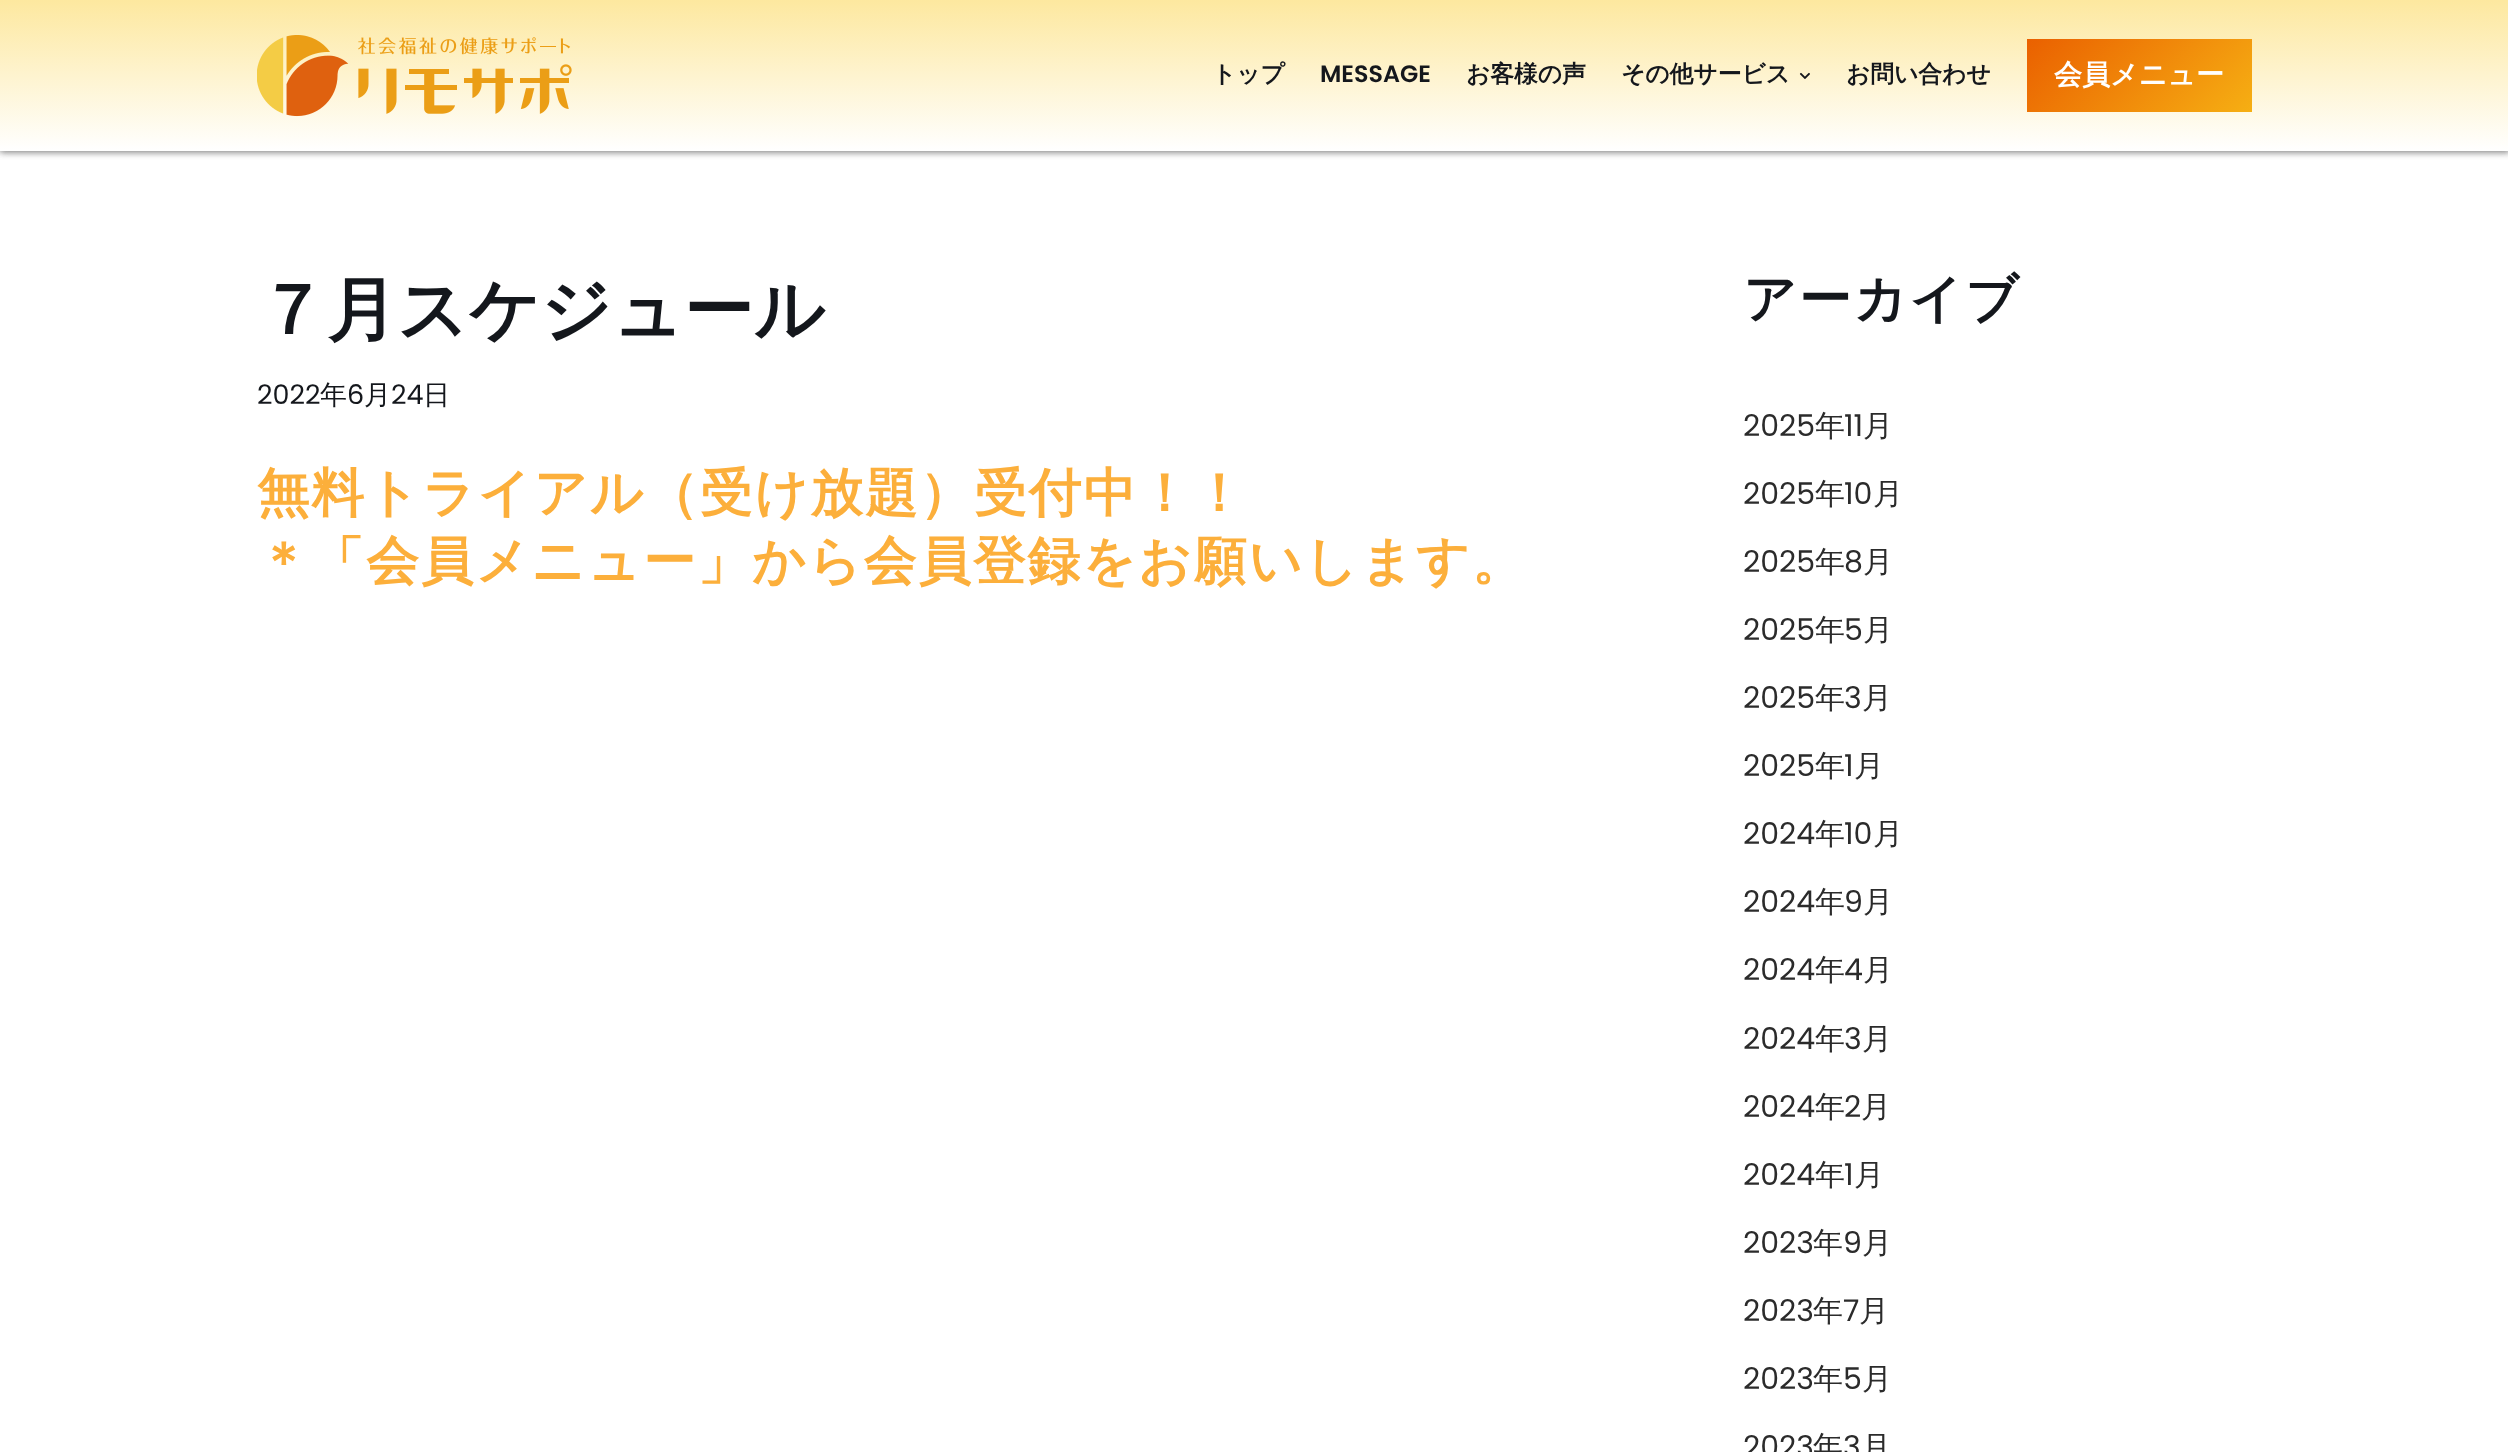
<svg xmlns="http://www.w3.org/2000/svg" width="2508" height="1452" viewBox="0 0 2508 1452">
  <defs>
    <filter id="blur1" x="-50%" y="-200%" width="200%" height="500%"><feGaussianBlur stdDeviation="3.5"/></filter>
    <linearGradient id="g1" gradientUnits="userSpaceOnUse" x1="1255" y1="0" x2="1255" y2="151"><stop offset="0" stop-color="#fde89f"/><stop offset="1" stop-color="#ffffff"/></linearGradient>
    <linearGradient id="g2" gradientUnits="userSpaceOnUse" x1="2065" y1="0.4" x2="2214" y2="150"><stop offset="0" stop-color="#ea6000"/><stop offset="1" stop-color="#f6af13"/></linearGradient>
  </defs>
  <rect width="100%" height="100%" fill="#ffffff"/>
  <rect x="0" y="2" width="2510" height="150" fill="#000000" fill-opacity="0.3" filter="url(#blur1)"/>
  <rect x="0" y="2" width="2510" height="150" fill="#000000" fill-opacity="0.3" filter="url(#blur1)"/>
  <rect x="0" y="0" width="2508" height="151" fill="url(#g1)"/>
  <image x="257" y="35" width="315" height="82" href="img1.png"/>
  <text x="1212" y="82" font-family="WenQuanYi Zen Hei" font-size="23.75" font-weight="bold" fill="#14171c">トップ</text>
  <text x="1320" y="82" font-family="Poppins" font-size="23.75" font-weight="600" fill="#14171c">MESSAGE</text>
  <text x="1466" y="82" font-family="WenQuanYi Zen Hei" font-size="23.75" font-weight="bold" fill="#14171c">お客様の声</text>
  <text x="1621" y="82" font-family="WenQuanYi Zen Hei" font-size="23.75" font-weight="bold" fill="#14171c">その他サービス</text>
  <image x="1799" y="72" width="11" height="7" href="img2.png"/>
  <text x="1846" y="82" font-family="WenQuanYi Zen Hei" font-size="23.75" font-weight="bold" fill="#14171c">お問い合わせ</text>
  <rect x="2027" y="39" width="225" height="73" fill="url(#g2)"/>
  <text x="2054" y="84" font-family="WenQuanYi Zen Hei" font-size="28" font-weight="bold" fill="#ffffff">会員メニュー</text>
  <text x="257" y="334" font-family="WenQuanYi Zen Hei" font-size="70" font-weight="bold" fill="#14171c">７月スケジュール</text>
  <text x="257" y="404" font-family="Poppins" font-size="27" fill="#14171c">2022</text>
  <text x="320" y="404" font-family="WenQuanYi Zen Hei" font-size="27" font-weight="500" fill="#14171c">年</text>
  <text x="347" y="404" font-family="Poppins" font-size="27" fill="#14171c">6</text>
  <text x="364" y="404" font-family="WenQuanYi Zen Hei" font-size="27" font-weight="500" fill="#14171c">月</text>
  <text x="391" y="404" font-family="Poppins" font-size="27" fill="#14171c">24</text>
  <text x="423" y="404" font-family="WenQuanYi Zen Hei" font-size="27" font-weight="500" fill="#14171c">日</text>
  <text x="257" y="511" font-family="WenQuanYi Zen Hei" font-size="52.5" font-weight="bold" letter-spacing="2.1" fill="#fcaf3b">無料トライアル（受け放題）受付中！！</text>
  <text x="257" y="579" font-family="WenQuanYi Zen Hei" font-size="52.5" font-weight="bold" letter-spacing="2.1" fill="#fcaf3b">＊「会員メニュー」から会員登録をお願いします。</text>
  <text x="1743" y="317" font-family="WenQuanYi Zen Hei" font-size="52.5" font-weight="bold" letter-spacing="2.1" fill="#14171c">アーカイブ</text>
  <text x="1743" y="436" font-family="Poppins" font-size="30" fill="#2b2b2b">2025</text>
  <text x="1815" y="436" font-family="WenQuanYi Zen Hei" font-size="30" font-weight="500" fill="#2b2b2b">年</text>
  <text x="1844" y="436" font-family="Poppins" font-size="30" fill="#2b2b2b">11</text>
  <text x="1863" y="436" font-family="WenQuanYi Zen Hei" font-size="30" font-weight="500" fill="#2b2b2b">月</text>
  <text x="1743" y="504" font-family="Poppins" font-size="30" fill="#2b2b2b">2025</text>
  <text x="1815" y="504" font-family="WenQuanYi Zen Hei" font-size="30" font-weight="500" fill="#2b2b2b">年</text>
  <text x="1844" y="504" font-family="Poppins" font-size="30" fill="#2b2b2b">10</text>
  <text x="1873" y="504" font-family="WenQuanYi Zen Hei" font-size="30" font-weight="500" fill="#2b2b2b">月</text>
  <text x="1743" y="572" font-family="Poppins" font-size="30" fill="#2b2b2b">2025</text>
  <text x="1815" y="572" font-family="WenQuanYi Zen Hei" font-size="30" font-weight="500" fill="#2b2b2b">年</text>
  <text x="1844" y="572" font-family="Poppins" font-size="30" fill="#2b2b2b">8</text>
  <text x="1863" y="572" font-family="WenQuanYi Zen Hei" font-size="30" font-weight="500" fill="#2b2b2b">月</text>
  <text x="1743" y="640" font-family="Poppins" font-size="30" fill="#2b2b2b">2025</text>
  <text x="1815" y="640" font-family="WenQuanYi Zen Hei" font-size="30" font-weight="500" fill="#2b2b2b">年</text>
  <text x="1844" y="640" font-family="Poppins" font-size="30" fill="#2b2b2b">5</text>
  <text x="1863" y="640" font-family="WenQuanYi Zen Hei" font-size="30" font-weight="500" fill="#2b2b2b">月</text>
  <text x="1743" y="708" font-family="Poppins" font-size="30" fill="#2b2b2b">2025</text>
  <text x="1815" y="708" font-family="WenQuanYi Zen Hei" font-size="30" font-weight="500" fill="#2b2b2b">年</text>
  <text x="1844" y="708" font-family="Poppins" font-size="30" fill="#2b2b2b">3</text>
  <text x="1862" y="708" font-family="WenQuanYi Zen Hei" font-size="30" font-weight="500" fill="#2b2b2b">月</text>
  <text x="1743" y="776" font-family="Poppins" font-size="30" fill="#2b2b2b">2025</text>
  <text x="1815" y="776" font-family="WenQuanYi Zen Hei" font-size="30" font-weight="500" fill="#2b2b2b">年</text>
  <text x="1844" y="776" font-family="Poppins" font-size="30" fill="#2b2b2b">1</text>
  <text x="1854" y="776" font-family="WenQuanYi Zen Hei" font-size="30" font-weight="500" fill="#2b2b2b">月</text>
  <text x="1743" y="844" font-family="Poppins" font-size="30" fill="#2b2b2b">2024</text>
  <text x="1815" y="844" font-family="WenQuanYi Zen Hei" font-size="30" font-weight="500" fill="#2b2b2b">年</text>
  <text x="1844" y="844" font-family="Poppins" font-size="30" fill="#2b2b2b">10</text>
  <text x="1873" y="844" font-family="WenQuanYi Zen Hei" font-size="30" font-weight="500" fill="#2b2b2b">月</text>
  <text x="1743" y="912" font-family="Poppins" font-size="30" fill="#2b2b2b">2024</text>
  <text x="1815" y="912" font-family="WenQuanYi Zen Hei" font-size="30" font-weight="500" fill="#2b2b2b">年</text>
  <text x="1844" y="912" font-family="Poppins" font-size="30" fill="#2b2b2b">9</text>
  <text x="1863" y="912" font-family="WenQuanYi Zen Hei" font-size="30" font-weight="500" fill="#2b2b2b">月</text>
  <text x="1743" y="980" font-family="Poppins" font-size="30" fill="#2b2b2b">2024</text>
  <text x="1815" y="980" font-family="WenQuanYi Zen Hei" font-size="30" font-weight="500" fill="#2b2b2b">年</text>
  <text x="1844" y="980" font-family="Poppins" font-size="30" fill="#2b2b2b">4</text>
  <text x="1863" y="980" font-family="WenQuanYi Zen Hei" font-size="30" font-weight="500" fill="#2b2b2b">月</text>
  <text x="1743" y="1049" font-family="Poppins" font-size="30" fill="#2b2b2b">2024</text>
  <text x="1815" y="1049" font-family="WenQuanYi Zen Hei" font-size="30" font-weight="500" fill="#2b2b2b">年</text>
  <text x="1844" y="1049" font-family="Poppins" font-size="30" fill="#2b2b2b">3</text>
  <text x="1862" y="1049" font-family="WenQuanYi Zen Hei" font-size="30" font-weight="500" fill="#2b2b2b">月</text>
  <text x="1743" y="1117" font-family="Poppins" font-size="30" fill="#2b2b2b">2024</text>
  <text x="1815" y="1117" font-family="WenQuanYi Zen Hei" font-size="30" font-weight="500" fill="#2b2b2b">年</text>
  <text x="1844" y="1117" font-family="Poppins" font-size="30" fill="#2b2b2b">2</text>
  <text x="1861" y="1117" font-family="WenQuanYi Zen Hei" font-size="30" font-weight="500" fill="#2b2b2b">月</text>
  <text x="1743" y="1185" font-family="Poppins" font-size="30" fill="#2b2b2b">2024</text>
  <text x="1815" y="1185" font-family="WenQuanYi Zen Hei" font-size="30" font-weight="500" fill="#2b2b2b">年</text>
  <text x="1844" y="1185" font-family="Poppins" font-size="30" fill="#2b2b2b">1</text>
  <text x="1854" y="1185" font-family="WenQuanYi Zen Hei" font-size="30" font-weight="500" fill="#2b2b2b">月</text>
  <text x="1743" y="1253" font-family="Poppins" font-size="30" fill="#2b2b2b">2023</text>
  <text x="1813" y="1253" font-family="WenQuanYi Zen Hei" font-size="30" font-weight="500" fill="#2b2b2b">年</text>
  <text x="1843" y="1253" font-family="Poppins" font-size="30" fill="#2b2b2b">9</text>
  <text x="1862" y="1253" font-family="WenQuanYi Zen Hei" font-size="30" font-weight="500" fill="#2b2b2b">月</text>
  <text x="1743" y="1321" font-family="Poppins" font-size="30" fill="#2b2b2b">2023</text>
  <text x="1813" y="1321" font-family="WenQuanYi Zen Hei" font-size="30" font-weight="500" fill="#2b2b2b">年</text>
  <text x="1843" y="1321" font-family="Poppins" font-size="30" fill="#2b2b2b">7</text>
  <text x="1859" y="1321" font-family="WenQuanYi Zen Hei" font-size="30" font-weight="500" fill="#2b2b2b">月</text>
  <text x="1743" y="1389" font-family="Poppins" font-size="30" fill="#2b2b2b">2023</text>
  <text x="1813" y="1389" font-family="WenQuanYi Zen Hei" font-size="30" font-weight="500" fill="#2b2b2b">年</text>
  <text x="1843" y="1389" font-family="Poppins" font-size="30" fill="#2b2b2b">5</text>
  <text x="1862" y="1389" font-family="WenQuanYi Zen Hei" font-size="30" font-weight="500" fill="#2b2b2b">月</text>
  <text x="1743" y="1457" font-family="Poppins" font-size="30" fill="#2b2b2b">2023</text>
  <text x="1813" y="1457" font-family="WenQuanYi Zen Hei" font-size="30" font-weight="500" fill="#2b2b2b">年</text>
  <text x="1843" y="1457" font-family="Poppins" font-size="30" fill="#2b2b2b">3</text>
  <text x="1861" y="1457" font-family="WenQuanYi Zen Hei" font-size="30" font-weight="500" fill="#2b2b2b">月</text>
</svg>
